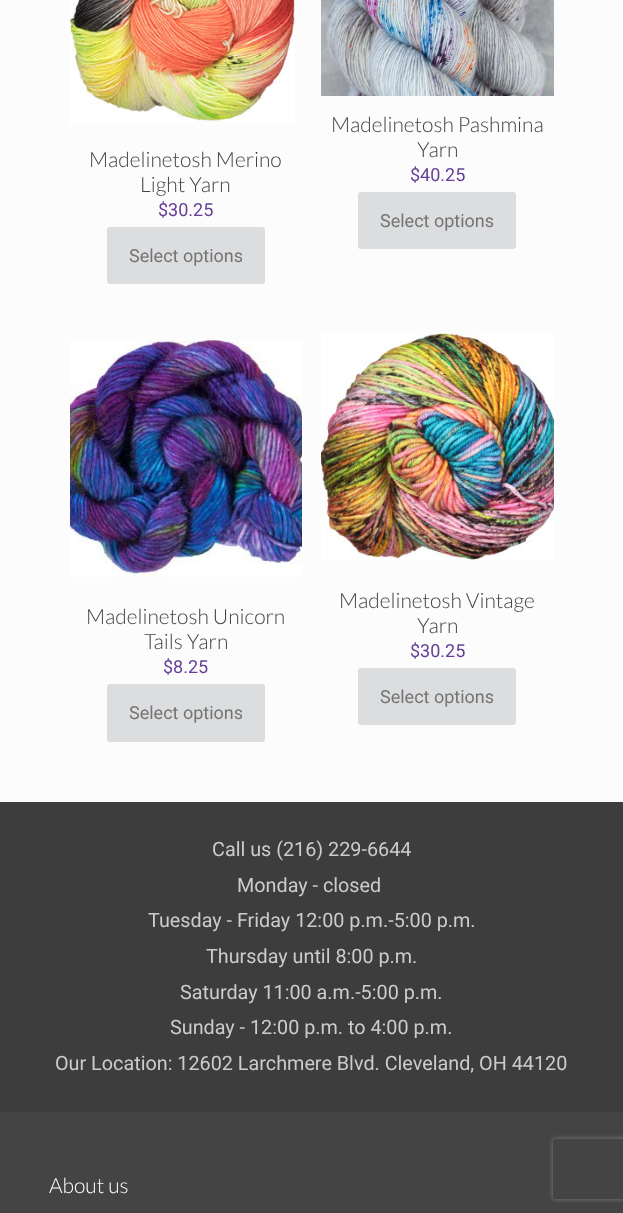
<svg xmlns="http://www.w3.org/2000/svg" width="623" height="1213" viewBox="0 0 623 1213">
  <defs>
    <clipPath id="clip1"><path d="M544 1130H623V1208H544ZM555 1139H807C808 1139 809 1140 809 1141V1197C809 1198 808 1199 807 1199H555C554 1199 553 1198 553 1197V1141C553 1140 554 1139 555 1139Z" clip-rule="evenodd"/></clipPath>
    <filter id="blur1" x="-50%" y="-200%" width="200%" height="500%"><feGaussianBlur stdDeviation="2.5"/></filter>
  </defs>
  <rect width="100%" height="100%" fill="#fcfcfc"/>
  <image x="70" y="0" width="225" height="125" href="img1.png"/>
  <text x="89" y="167" font-family="Lato" font-size="21" font-weight="300" fill="#444444">Madelinetosh Merino</text>
  <text x="140" y="192" font-family="Lato" font-size="21" font-weight="300" fill="#444444">Light Yarn</text>
  <text x="158" y="216" font-family="Roboto" font-size="18" fill="#653e97">$30.25</text>
  <rect x="107" y="227" width="158" height="57" rx="3" fill="#dbdddf"/>
  <text x="129" y="262" font-family="Roboto" font-size="18" fill="#747474">Select options</text>
  <image x="321" y="0" width="233" height="96" href="img2.png"/>
  <text x="331" y="132" font-family="Lato" font-size="21" font-weight="300" fill="#444444">Madelinetosh Pashmina</text>
  <text x="417" y="157" font-family="Lato" font-size="21" font-weight="300" fill="#444444">Yarn</text>
  <text x="410" y="181" font-family="Roboto" font-size="18" fill="#653e97">$40.25</text>
  <rect x="358" y="192" width="158" height="57" rx="3" fill="#dbdddf"/>
  <text x="380" y="227" font-family="Roboto" font-size="18" fill="#747474">Select options</text>
  <image x="70" y="340" width="232" height="237" href="img3.png"/>
  <text x="86" y="624" font-family="Lato" font-size="21" font-weight="300" fill="#444444">Madelinetosh Unicorn</text>
  <text x="144" y="649" font-family="Lato" font-size="21" font-weight="300" fill="#444444">Tails Yarn</text>
  <text x="163" y="673" font-family="Roboto" font-size="18" fill="#653e97">$8.25</text>
  <rect x="107" y="684" width="158" height="58" rx="3" fill="#dbdddf"/>
  <text x="129" y="719" font-family="Roboto" font-size="18" fill="#747474">Select options</text>
  <image x="321" y="333" width="233" height="227" href="img4.png"/>
  <text x="339" y="608" font-family="Lato" font-size="21" font-weight="300" fill="#444444">Madelinetosh Vintage</text>
  <text x="417" y="633" font-family="Lato" font-size="21" font-weight="300" fill="#444444">Yarn</text>
  <text x="410" y="657" font-family="Roboto" font-size="18" fill="#653e97">$30.25</text>
  <rect x="358" y="668" width="158" height="57" rx="3" fill="#dbdddf"/>
  <text x="380" y="703" font-family="Roboto" font-size="18" fill="#747474">Select options</text>
  <rect x="0" y="1112" width="623" height="101" fill="#444444"/>
  <rect x="0" y="802" width="623" height="310" fill="#3d3d3d"/>
  <text x="212" y="856" font-family="Roboto" font-size="19.8" fill="#cccccc">Call us (216) 229-6644</text>
  <text x="237" y="892" font-family="Roboto" font-size="19.8" fill="#cccccc">Monday - closed</text>
  <text x="148" y="927" font-family="Roboto" font-size="19.8" fill="#cccccc">Tuesday - Friday 12:00 p.m.-5:00 p.m.</text>
  <text x="206" y="963" font-family="Roboto" font-size="19.8" fill="#cccccc">Thursday until 8:00 p.m.</text>
  <text x="180" y="999" font-family="Roboto" font-size="19.8" fill="#cccccc">Saturday 11:00 a.m.-5:00 p.m.</text>
  <text x="170" y="1034" font-family="Roboto" font-size="19.8" fill="#cccccc">Sunday - 12:00 p.m. to 4:00 p.m.</text>
  <text x="55" y="1070" font-family="Roboto" font-size="19.8" fill="#cccccc">Our Location: 12602 Larchmere Blvd. Cleveland, OH 44120</text>
  <text x="49" y="1193" font-family="Lato" font-size="21" font-weight="300" fill="#ffffff">About us</text>
  <g clip-path="url(#clip1)">
    <rect x="553" y="1139" width="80" height="60" rx="2" fill="#808080" filter="url(#blur1)"/>
  </g>
</svg>
